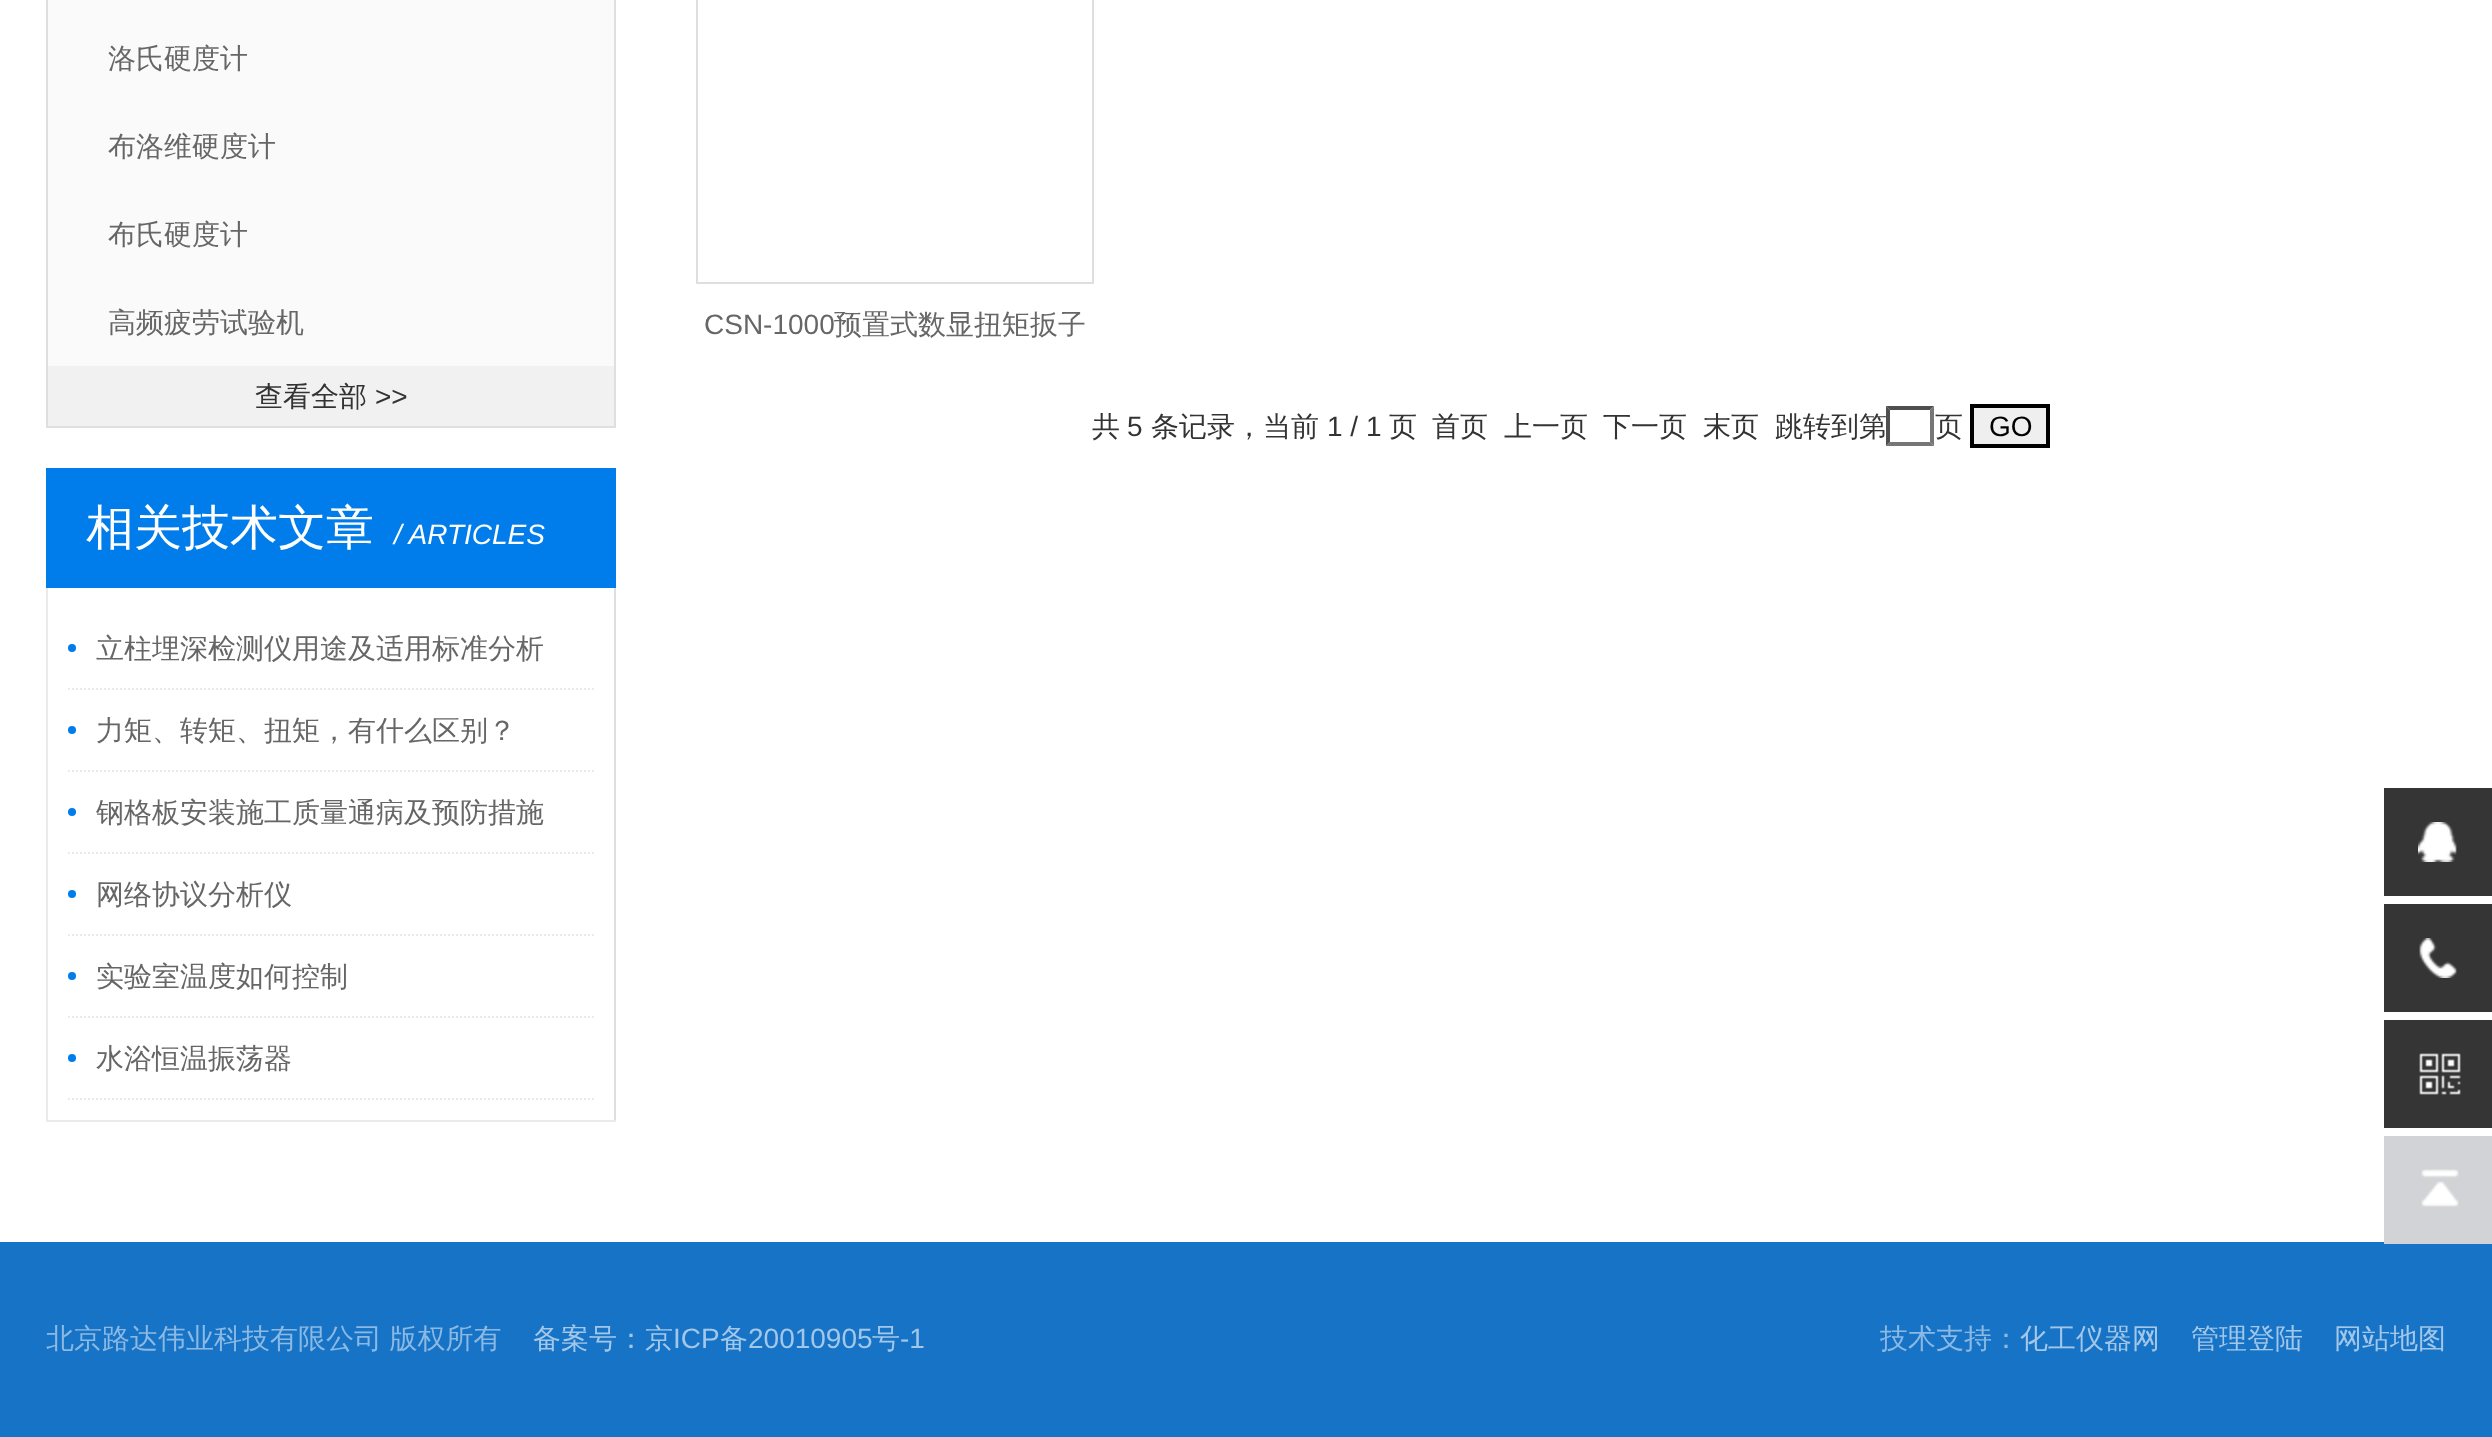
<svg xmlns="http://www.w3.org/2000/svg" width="2492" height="1437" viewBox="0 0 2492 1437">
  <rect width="100%" height="100%" fill="#ffffff"/>
  <rect x="614" y="0" width="2" height="428" fill="#dfdfdf"/>
  <rect x="46" y="0" width="2" height="428" fill="#dfdfdf"/>
  <rect x="48" y="426" width="566" height="2" fill="#dfdfdf"/>
  <rect x="48" y="0" width="566" height="366" fill="#fafafa"/>
  <text x="108" y="68" font-family="WenQuanYi Zen Hei" font-size="28" font-weight="500" fill="#666666">洛氏硬度计</text>
  <text x="108" y="156" font-family="WenQuanYi Zen Hei" font-size="28" font-weight="500" fill="#666666">布洛维硬度计</text>
  <text x="108" y="244" font-family="WenQuanYi Zen Hei" font-size="28" font-weight="500" fill="#666666">布氏硬度计</text>
  <text x="108" y="332" font-family="WenQuanYi Zen Hei" font-size="28" font-weight="500" fill="#666666">高频疲劳试验机</text>
  <rect x="48" y="366" width="566" height="60" fill="#f1f1f1"/>
  <text x="255" y="406" font-family="WenQuanYi Zen Hei" font-size="28" font-weight="500" fill="#333333">查看全部</text>
  <text x="375" y="406" font-family="Liberation Sans" font-size="28" fill="#333333">&gt;&gt;</text>
  <rect x="46" y="468" width="570" height="120" fill="#007deb"/>
  <text x="86" y="544" font-family="WenQuanYi Zen Hei" font-size="48" font-weight="500" fill="#ffffff">相关技术文章</text>
  <text x="394" y="544" font-family="Liberation Sans" font-size="28" font-style="italic" fill="#ffffff">/ ARTICLES</text>
  <rect x="614" y="588" width="2" height="534" fill="#dfdfdf"/>
  <rect x="46" y="1120" width="570" height="2" fill="#eaeaea"/>
  <rect x="46" y="588" width="2" height="534" fill="#eaeaea"/>
  <path d="M68 689H594" fill="none" stroke="#eaeaea" stroke-width="2" stroke-dasharray="2 2"/>
  <circle cx="72" cy="648" r="4" fill="#007deb"/>
  <text x="96" y="658" font-family="WenQuanYi Zen Hei" font-size="28" font-weight="500" fill="#666666">立柱埋深检测仪用途及适用标准分析</text>
  <path d="M68 771H594" fill="none" stroke="#eaeaea" stroke-width="2" stroke-dasharray="2 2"/>
  <circle cx="72" cy="730" r="4" fill="#007deb"/>
  <text x="96" y="740" font-family="WenQuanYi Zen Hei" font-size="28" font-weight="500" fill="#666666">力矩、转矩、扭矩，有什么区别？</text>
  <path d="M68 853H594" fill="none" stroke="#eaeaea" stroke-width="2" stroke-dasharray="2 2"/>
  <circle cx="72" cy="812" r="4" fill="#007deb"/>
  <text x="96" y="822" font-family="WenQuanYi Zen Hei" font-size="28" font-weight="500" fill="#666666">钢格板安装施工质量通病及预防措施</text>
  <path d="M68 935H594" fill="none" stroke="#eaeaea" stroke-width="2" stroke-dasharray="2 2"/>
  <circle cx="72" cy="894" r="4" fill="#007deb"/>
  <text x="96" y="904" font-family="WenQuanYi Zen Hei" font-size="28" font-weight="500" fill="#666666">网络协议分析仪</text>
  <path d="M68 1017H594" fill="none" stroke="#eaeaea" stroke-width="2" stroke-dasharray="2 2"/>
  <circle cx="72" cy="976" r="4" fill="#007deb"/>
  <text x="96" y="986" font-family="WenQuanYi Zen Hei" font-size="28" font-weight="500" fill="#666666">实验室温度如何控制</text>
  <path d="M68 1099H594" fill="none" stroke="#eaeaea" stroke-width="2" stroke-dasharray="2 2"/>
  <circle cx="72" cy="1058" r="4" fill="#007deb"/>
  <text x="96" y="1068" font-family="WenQuanYi Zen Hei" font-size="28" font-weight="500" fill="#666666">水浴恒温振荡器</text>
  <rect x="697" y="-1" width="396" height="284" fill="none" stroke="#dfdfdf" stroke-width="2"/>
  <text x="704" y="334" font-family="Liberation Sans" font-size="28" fill="#666666">CSN-1000</text>
  <text x="834" y="334" font-family="WenQuanYi Zen Hei" font-size="28" font-weight="500" fill="#666666">预置式数显扭矩扳子</text>
  <text x="1092" y="436" font-family="WenQuanYi Zen Hei" font-size="28" font-weight="500" fill="#333333">共</text>
  <text x="1127" y="436" font-family="Liberation Sans" font-size="28" fill="#333333">5</text>
  <text x="1151" y="436" font-family="WenQuanYi Zen Hei" font-size="28" font-weight="500" fill="#333333">条记录，当前</text>
  <text x="1327" y="436" font-family="Liberation Sans" font-size="28" fill="#333333">1 / 1</text>
  <text x="1389" y="436" font-family="WenQuanYi Zen Hei" font-size="28" font-weight="500" fill="#333333">页</text>
  <text x="1432" y="436" font-family="WenQuanYi Zen Hei" font-size="28" font-weight="500" fill="#333333">首页</text>
  <text x="1504" y="436" font-family="WenQuanYi Zen Hei" font-size="28" font-weight="500" fill="#333333">上一页</text>
  <text x="1603" y="436" font-family="WenQuanYi Zen Hei" font-size="28" font-weight="500" fill="#333333">下一页</text>
  <text x="1703" y="436" font-family="WenQuanYi Zen Hei" font-size="28" font-weight="500" fill="#333333">末页</text>
  <text x="1775" y="436" font-family="WenQuanYi Zen Hei" font-size="28" font-weight="500" fill="#333333">跳转到第</text>
  <path d="M1886 406H1934L1930 410H1890Z" fill="#4f4f4f"/>
  <path d="M1934 406V446L1930 442V410Z" fill="#767676"/>
  <path d="M1934 446H1886L1890 442H1930Z" fill="#767676"/>
  <path d="M1886 446V406L1890 410V442Z" fill="#4f4f4f"/>
  <text x="1935" y="436" font-family="WenQuanYi Zen Hei" font-size="28" font-weight="500" fill="#333333">页</text>
  <rect x="1972" y="406" width="76" height="40" fill="#efefef" stroke="#000000" stroke-width="4"/>
  <text x="1989" y="436" font-family="Liberation Sans" font-size="28" fill="#000000">GO</text>
  <rect x="2384" y="788" width="108" height="108" fill="#353535"/>
  <image x="2418" y="822" width="39" height="40" href="img1.png"/>
  <rect x="2384" y="904" width="108" height="108" fill="#353535"/>
  <image x="2419" y="938" width="38" height="40" href="img2.png"/>
  <rect x="2384" y="1020" width="108" height="108" fill="#353535"/>
  <image x="2419" y="1053" width="42" height="42" href="img3.png"/>
  <rect x="0" y="1242" width="2492" height="195" fill="#1773c6"/>
  <rect x="2384" y="1136" width="108" height="108" fill="#d2d3d6"/>
  <image x="2421" y="1169" width="38" height="38" href="img4.png"/>
  <text x="46" y="1348" word-spacing="-1" font-family="WenQuanYi Zen Hei" font-size="28" font-weight="500" fill="#8bb9e3">北京路达伟业科技有限公司 版权所有</text>
  <text x="533" y="1348" font-family="WenQuanYi Zen Hei" font-size="28" font-weight="500" fill="#a2c7e8">备案号：京</text>
  <text x="673" y="1348" font-family="Liberation Sans" font-size="28" fill="#a2c7e8">ICP</text>
  <text x="720" y="1348" font-family="WenQuanYi Zen Hei" font-size="28" font-weight="500" fill="#a2c7e8">备</text>
  <text x="748" y="1348" font-family="Liberation Sans" font-size="28" fill="#a2c7e8">20010905</text>
  <text x="872" y="1348" font-family="WenQuanYi Zen Hei" font-size="28" font-weight="500" fill="#a2c7e8">号</text>
  <text x="900" y="1348" font-family="Liberation Sans" font-size="28" fill="#a2c7e8">-1</text>
  <text x="1880" y="1348" font-family="WenQuanYi Zen Hei" font-size="28" font-weight="500" fill="#8bb9e3">技术支持：</text>
  <text x="2020" y="1348" font-family="WenQuanYi Zen Hei" font-size="28" font-weight="500" fill="#a2c7e8">化工仪器网</text>
  <text x="2191" y="1348" font-family="WenQuanYi Zen Hei" font-size="28" font-weight="500" fill="#a2c7e8">管理登陆</text>
  <text x="2334" y="1348" font-family="WenQuanYi Zen Hei" font-size="28" font-weight="500" fill="#a2c7e8">网站地图</text>
</svg>
